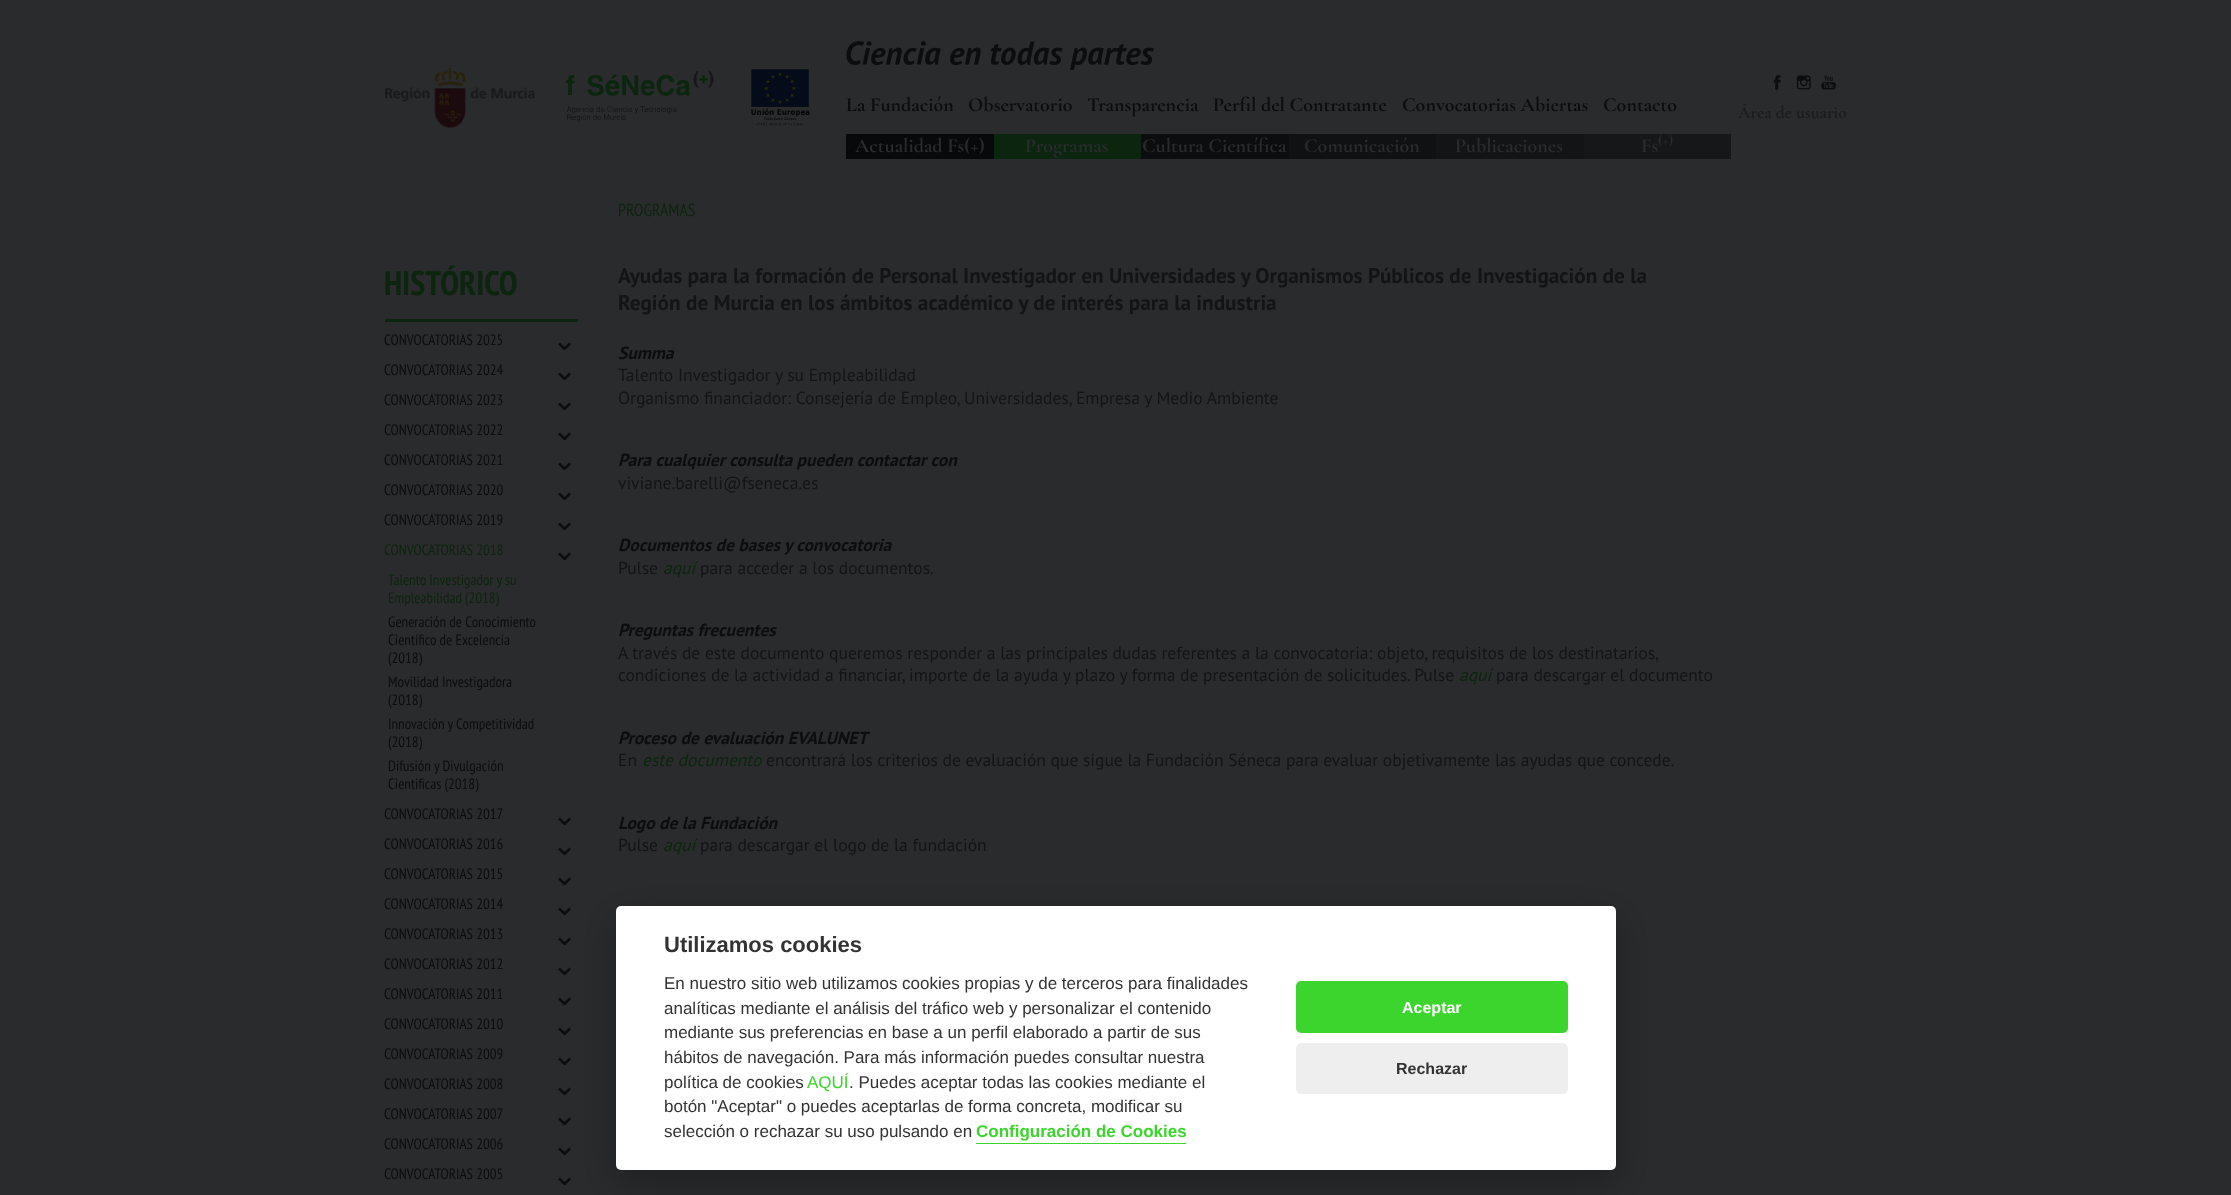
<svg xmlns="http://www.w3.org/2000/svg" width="2231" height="1195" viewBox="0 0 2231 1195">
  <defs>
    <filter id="blur1" x="-50%" y="-200%" width="200%" height="500%"><feGaussianBlur stdDeviation="19"/></filter>
  </defs>
  <rect width="100%" height="100%" fill="#2a2b2d"/>
  <image x="385" y="65" width="150" height="63" href="img1.png"/>
  <image x="566" y="71" width="148" height="51" href="img2.png"/>
  <image x="751" y="69" width="59" height="57" href="img3.png"/>
  <image x="846" y="41" width="308" height="29" href="img4.png"/>
  <text x="846" y="111" font-family="Cormorant Garamond" font-size="20" font-weight="bold" fill="#0b0d0e">La Fundación</text>
  <text x="968" y="111" font-family="Cormorant Garamond" font-size="20" font-weight="bold" fill="#0b0d0e">Observatorio</text>
  <text x="1087" y="111" font-family="Cormorant Garamond" font-size="20" font-weight="bold" fill="#0b0d0e">Transparencia</text>
  <text x="1213" y="111" font-family="Cormorant Garamond" font-size="20" font-weight="bold" fill="#0b0d0e">Perfil del Contratante</text>
  <text x="1402" y="111" font-family="Cormorant Garamond" font-size="20" font-weight="bold" fill="#0b0d0e">Convocatorias Abiertas</text>
  <text x="1603" y="111" font-family="Cormorant Garamond" font-size="20" font-weight="bold" fill="#0b0d0e">Contacto</text>
  <rect x="846" y="134" width="148" height="25" fill="#07090b"/>
  <text x="855" y="152" font-family="Cormorant Garamond" font-size="20" font-weight="bold" fill="#2a2b2d">Actualidad Fs(+)</text>
  <rect x="994" y="134" width="147" height="25" fill="#0c250e"/>
  <text x="1025" y="152" font-family="Cormorant Garamond" font-size="20" font-weight="bold" fill="#2a2b2d">Programas</text>
  <rect x="1141" y="134" width="148" height="25" fill="#0b0d0e"/>
  <text x="1142" y="152" font-family="Cormorant Garamond" font-size="20" font-weight="bold" fill="#2a2b2d">Cultura Científica</text>
  <rect x="1289" y="134" width="147" height="25" fill="#0f1112"/>
  <text x="1304" y="152" font-family="Cormorant Garamond" font-size="20" font-weight="bold" fill="#2a2b2d">Comunicación</text>
  <rect x="1436" y="134" width="148" height="25" fill="#131416"/>
  <text x="1455" y="152" font-family="Cormorant Garamond" font-size="20" font-weight="bold" fill="#2a2b2d">Publicaciones</text>
  <rect x="1584" y="134" width="147" height="25" fill="#151719"/>
  <text x="1641" y="152" font-family="Cormorant Garamond" font-size="20" font-weight="bold" fill="#2a2b2d">Fs</text>
  <text x="1658" y="145" font-family="Cormorant Garamond" font-size="15" font-weight="bold" fill="#2a2b2d">(+)</text>
  <image x="1773" y="75" width="8" height="15" href="img5.png"/>
  <image x="1796" y="75" width="15" height="15" href="img6.png"/>
  <image x="1821" y="75" width="15" height="15" href="img7.png"/>
  <text x="1738" y="118" font-family="Cormorant Garamond" font-size="17.5" font-weight="bold" fill="#1a1c1e">Área de usuario</text>
  <text x="618" y="216" font-family="PT Sans Narrow" font-size="17.5" fill="#0c250e">PROGRAMAS</text>
  <rect x="385" y="319" width="193" height="3" fill="#0c250e"/>
  <text x="384" y="295" font-family="PT Sans Narrow" font-size="34" font-weight="bold" fill="#0c250e">HISTÓRICO</text>
  <text x="384" y="345" font-family="PT Sans Narrow" font-size="15" fill="#0b0d0e">CONVOCATORIAS 2025</text>
  <text x="552" y="350" font-family="DejaVu Sans" font-size="30" fill="#0b0d0e">⌄</text>
  <text x="384" y="375" font-family="PT Sans Narrow" font-size="15" fill="#0b0d0e">CONVOCATORIAS 2024</text>
  <text x="552" y="380" font-family="DejaVu Sans" font-size="30" fill="#0b0d0e">⌄</text>
  <text x="384" y="405" font-family="PT Sans Narrow" font-size="15" fill="#0b0d0e">CONVOCATORIAS 2023</text>
  <text x="552" y="410" font-family="DejaVu Sans" font-size="30" fill="#0b0d0e">⌄</text>
  <text x="384" y="435" font-family="PT Sans Narrow" font-size="15" fill="#0b0d0e">CONVOCATORIAS 2022</text>
  <text x="552" y="440" font-family="DejaVu Sans" font-size="30" fill="#0b0d0e">⌄</text>
  <text x="384" y="465" font-family="PT Sans Narrow" font-size="15" fill="#0b0d0e">CONVOCATORIAS 2021</text>
  <text x="552" y="470" font-family="DejaVu Sans" font-size="30" fill="#0b0d0e">⌄</text>
  <text x="384" y="495" font-family="PT Sans Narrow" font-size="15" fill="#0b0d0e">CONVOCATORIAS 2020</text>
  <text x="552" y="500" font-family="DejaVu Sans" font-size="30" fill="#0b0d0e">⌄</text>
  <text x="384" y="525" font-family="PT Sans Narrow" font-size="15" fill="#0b0d0e">CONVOCATORIAS 2019</text>
  <text x="552" y="530" font-family="DejaVu Sans" font-size="30" fill="#0b0d0e">⌄</text>
  <text x="384" y="555" font-family="PT Sans Narrow" font-size="15" fill="#0c250e">CONVOCATORIAS 2018</text>
  <text x="552" y="560" font-family="DejaVu Sans" font-size="30" fill="#0b0d0e">⌄</text>
  <text x="388" y="585" font-family="PT Sans Narrow" font-size="15" fill="#0c250e">Talento Investigador y su</text>
  <text x="388" y="603" font-family="PT Sans Narrow" font-size="15" fill="#0c250e">Empleabilidad (2018)</text>
  <text x="388" y="627" font-family="PT Sans Narrow" font-size="15" fill="#0b0d0e">Generación de Conocimiento</text>
  <text x="388" y="645" font-family="PT Sans Narrow" font-size="15" fill="#0b0d0e">Científico de Excelencia</text>
  <text x="388" y="663" font-family="PT Sans Narrow" font-size="15" fill="#0b0d0e">(2018)</text>
  <text x="388" y="687" font-family="PT Sans Narrow" font-size="15" fill="#0b0d0e">Movilidad Investigadora</text>
  <text x="388" y="705" font-family="PT Sans Narrow" font-size="15" fill="#0b0d0e">(2018)</text>
  <text x="388" y="729" font-family="PT Sans Narrow" font-size="15" fill="#0b0d0e">Innovación y Competitividad</text>
  <text x="388" y="747" font-family="PT Sans Narrow" font-size="15" fill="#0b0d0e">(2018)</text>
  <text x="388" y="771" font-family="PT Sans Narrow" font-size="15" fill="#0b0d0e">Difusión y Divulgación</text>
  <text x="388" y="789" font-family="PT Sans Narrow" font-size="15" fill="#0b0d0e">Cientificas (2018)</text>
  <text x="384" y="819" font-family="PT Sans Narrow" font-size="15" fill="#0b0d0e">CONVOCATORIAS 2017</text>
  <text x="552" y="825" font-family="DejaVu Sans" font-size="30" fill="#0b0d0e">⌄</text>
  <text x="384" y="849" font-family="PT Sans Narrow" font-size="15" fill="#0b0d0e">CONVOCATORIAS 2016</text>
  <text x="552" y="855" font-family="DejaVu Sans" font-size="30" fill="#0b0d0e">⌄</text>
  <text x="384" y="879" font-family="PT Sans Narrow" font-size="15" fill="#0b0d0e">CONVOCATORIAS 2015</text>
  <text x="552" y="885" font-family="DejaVu Sans" font-size="30" fill="#0b0d0e">⌄</text>
  <text x="384" y="909" font-family="PT Sans Narrow" font-size="15" fill="#0b0d0e">CONVOCATORIAS 2014</text>
  <text x="552" y="915" font-family="DejaVu Sans" font-size="30" fill="#0b0d0e">⌄</text>
  <text x="384" y="939" font-family="PT Sans Narrow" font-size="15" fill="#0b0d0e">CONVOCATORIAS 2013</text>
  <text x="552" y="945" font-family="DejaVu Sans" font-size="30" fill="#0b0d0e">⌄</text>
  <text x="384" y="969" font-family="PT Sans Narrow" font-size="15" fill="#0b0d0e">CONVOCATORIAS 2012</text>
  <text x="552" y="975" font-family="DejaVu Sans" font-size="30" fill="#0b0d0e">⌄</text>
  <text x="384" y="999" font-family="PT Sans Narrow" font-size="15" fill="#0b0d0e">CONVOCATORIAS 2011</text>
  <text x="552" y="1005" font-family="DejaVu Sans" font-size="30" fill="#0b0d0e">⌄</text>
  <text x="384" y="1029" font-family="PT Sans Narrow" font-size="15" fill="#0b0d0e">CONVOCATORIAS 2010</text>
  <text x="552" y="1035" font-family="DejaVu Sans" font-size="30" fill="#0b0d0e">⌄</text>
  <text x="384" y="1059" font-family="PT Sans Narrow" font-size="15" fill="#0b0d0e">CONVOCATORIAS 2009</text>
  <text x="552" y="1065" font-family="DejaVu Sans" font-size="30" fill="#0b0d0e">⌄</text>
  <text x="384" y="1089" font-family="PT Sans Narrow" font-size="15" fill="#0b0d0e">CONVOCATORIAS 2008</text>
  <text x="552" y="1095" font-family="DejaVu Sans" font-size="30" fill="#0b0d0e">⌄</text>
  <text x="384" y="1119" font-family="PT Sans Narrow" font-size="15" fill="#0b0d0e">CONVOCATORIAS 2007</text>
  <text x="552" y="1125" font-family="DejaVu Sans" font-size="30" fill="#0b0d0e">⌄</text>
  <text x="384" y="1149" font-family="PT Sans Narrow" font-size="15" fill="#0b0d0e">CONVOCATORIAS 2006</text>
  <text x="552" y="1155" font-family="DejaVu Sans" font-size="30" fill="#0b0d0e">⌄</text>
  <text x="384" y="1179" font-family="PT Sans Narrow" font-size="15" fill="#0b0d0e">CONVOCATORIAS 2005</text>
  <text x="552" y="1185" font-family="DejaVu Sans" font-size="30" fill="#0b0d0e">⌄</text>
  <text x="618" y="283" font-family="PT Sans" font-size="21.25" font-weight="bold" fill="#131416">Ayudas para la formación de Personal Investigador en Universidades y Organismos Públicos de Investigación de la</text>
  <text x="618" y="310" font-family="PT Sans" font-size="21.25" font-weight="bold" fill="#131416">Región de Murcia en los ámbitos académico y de interés para la industria</text>
  <text x="618" y="359" font-family="PT Sans" font-size="17.5" font-weight="bold" font-style="italic" fill="#0b0d0e">Summa</text>
  <text x="618" y="381" font-family="PT Sans" font-size="17.5" fill="#131416">Talento Investigador y su Empleabilidad</text>
  <text x="618" y="404" font-family="PT Sans" font-size="17.5" fill="#131416">Organismo financiador: Consejería de Empleo, Universidades, Empresa y Medio Ambiente</text>
  <text x="618" y="466" font-family="PT Sans" font-size="17.5" font-weight="bold" font-style="italic" fill="#0b0d0e">Para cualquier consulta pueden contactar con</text>
  <text x="618" y="489" font-family="PT Sans" font-size="17.5" fill="#131416">viviane.barelli@fseneca.es</text>
  <text x="618" y="551" font-family="PT Sans" font-size="17.5" font-weight="bold" font-style="italic" fill="#0b0d0e">Documentos de bases y convocatoria</text>
  <text x="618" y="574" font-family="PT Sans" font-size="17.5" fill="#131416">Pulse</text>
  <text x="663" y="574" font-family="PT Sans" font-size="17.5" font-style="italic" fill="#0c250e">aquí</text>
  <text x="700" y="574" font-family="PT Sans" font-size="17.5" fill="#131416">para acceder a los documentos.</text>
  <text x="618" y="636" font-family="PT Sans" font-size="17.5" font-weight="bold" font-style="italic" fill="#0b0d0e">Preguntas frecuentes</text>
  <text x="618" y="659" font-family="PT Sans" font-size="17.5" fill="#131416">A través de este documento queremos responder a las principales dudas referentes a la convocatoria: objeto, requisitos de los destinatarios,</text>
  <text x="618" y="681" font-family="PT Sans" font-size="17.5" fill="#131416">condiciones de la actividad a financiar, importe de la ayuda y plazo y forma de presentación de solicitudes. Pulse</text>
  <text x="1459" y="681" font-family="PT Sans" font-size="17.5" font-style="italic" fill="#0c250e">aquí</text>
  <text x="1496" y="681" font-family="PT Sans" font-size="17.5" fill="#131416">para descargar el documento</text>
  <text x="618" y="744" font-family="PT Sans" font-size="17.5" font-weight="bold" font-style="italic" fill="#0b0d0e">Proceso de evaluación EVALUNET</text>
  <text x="618" y="766" font-family="PT Sans" font-size="17.5" fill="#131416">En</text>
  <text x="642" y="766" font-family="PT Sans" font-size="17.5" font-style="italic" fill="#0c250e">este documento</text>
  <text x="766" y="766" font-family="PT Sans" font-size="17.5" fill="#131416">encontrará los criterios de evaluación que sigue la Fundación Séneca para evaluar objetivamente las ayudas que concede.</text>
  <text x="618" y="829" font-family="PT Sans" font-size="17.5" font-weight="bold" font-style="italic" fill="#0b0d0e">Logo de la Fundación</text>
  <text x="618" y="851" font-family="PT Sans" font-size="17.5" fill="#131416">Pulse</text>
  <text x="663" y="851" font-family="PT Sans" font-size="17.5" font-style="italic" fill="#0c250e">aquí</text>
  <text x="700" y="851" font-family="PT Sans" font-size="17.5" fill="#131416">para descargar el logo de la fundación</text>
  <rect x="616" y="919" width="1000" height="264" rx="5" fill="#020203" fill-opacity="0.28" filter="url(#blur1)"/>
  <rect x="616" y="906" width="1000" height="264" rx="5" fill="#ffffff"/>
  <text x="664" y="952" font-family="Liberation Sans" font-size="22" font-weight="bold" fill="#333333">Utilizamos cookies</text>
  <text x="664" y="989" font-family="Liberation Sans" font-size="17" fill="#333333">En nuestro sitio web utilizamos cookies propias y de terceros para finalidades</text>
  <text x="664" y="1014" font-family="Liberation Sans" font-size="17" fill="#333333">analíticas mediante el análisis del tráfico web y personalizar el contenido</text>
  <text x="664" y="1038" font-family="Liberation Sans" font-size="17" fill="#333333">mediante sus preferencias en base a un perfil elaborado a partir de sus</text>
  <text x="664" y="1063" font-family="Liberation Sans" font-size="17" fill="#333333">hábitos de navegación. Para más información puedes consultar nuestra</text>
  <text x="664" y="1088" font-family="Liberation Sans" font-size="17" fill="#333333">política de cookies</text>
  <text x="807" y="1088" font-family="Liberation Sans" font-size="17" fill="#3cd52e">AQUÍ</text>
  <text x="849" y="1088" font-family="Liberation Sans" font-size="17" fill="#333333">. Puedes aceptar todas las cookies mediante el</text>
  <text x="664" y="1112" font-family="Liberation Sans" font-size="17" fill="#333333">botón "Aceptar" o puedes aceptarlas de forma concreta, modificar su</text>
  <text x="664" y="1137" font-family="Liberation Sans" font-size="17" fill="#333333">selección o rechazar su uso pulsando en</text>
  <text x="976" y="1137" font-family="Liberation Sans" font-size="17" font-weight="bold" fill="#3cd52e">Configuración de Cookies</text>
  <rect x="976" y="1143" width="210" height="1" fill="#3cd52e"/>
  <rect x="1296" y="981" width="272" height="52" rx="5" fill="#3cd52e"/>
  <text x="1402" y="1013" font-family="Liberation Sans" font-size="16" font-weight="bold" fill="#ffffff">Aceptar</text>
  <rect x="1296" y="1043" width="272" height="51" rx="5" fill="#eeeeee"/>
  <text x="1396" y="1074" font-family="Liberation Sans" font-size="16" font-weight="bold" fill="#333333">Rechazar</text>
</svg>
